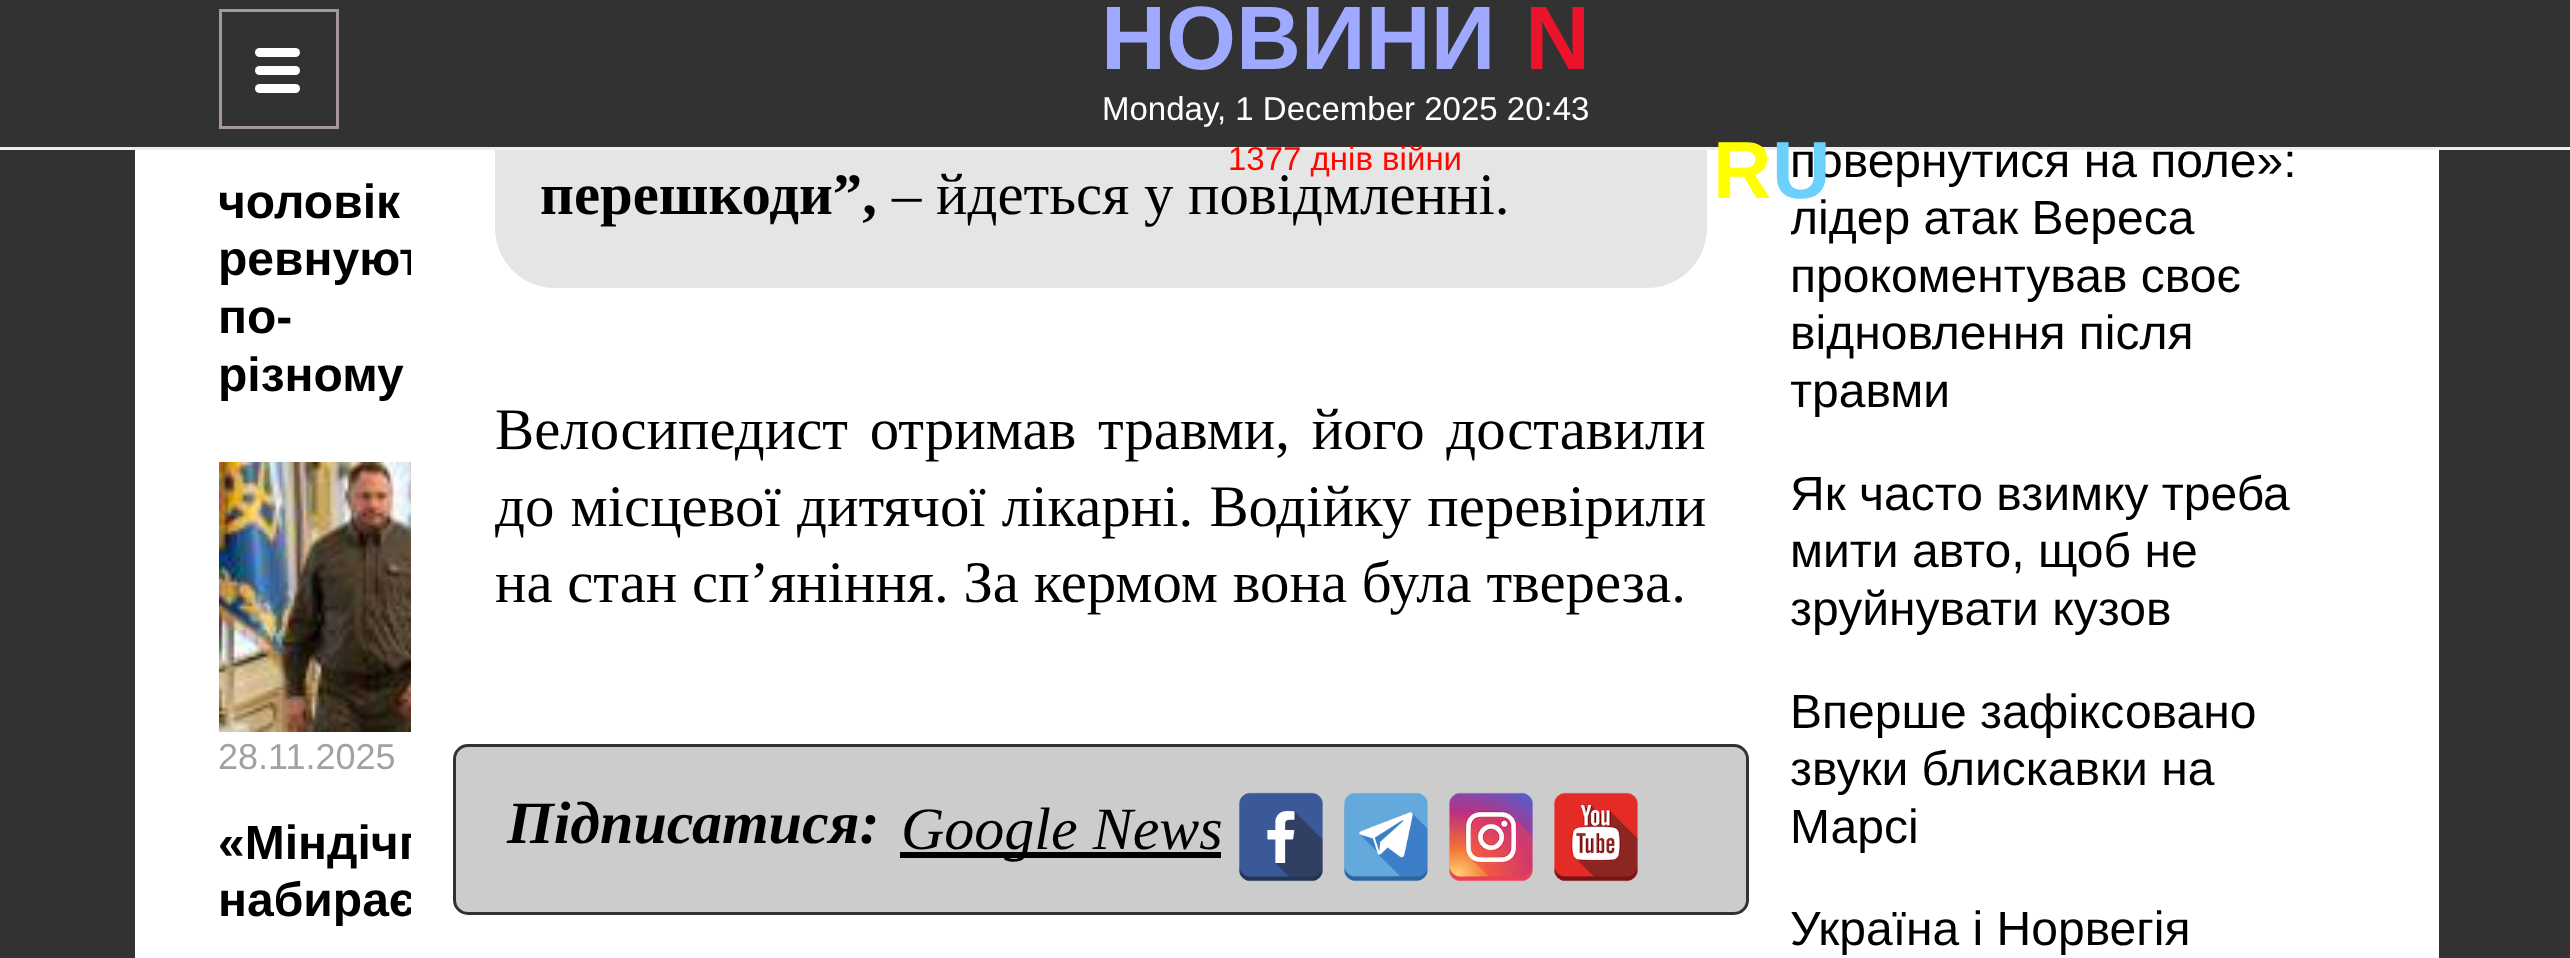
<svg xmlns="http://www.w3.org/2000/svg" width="2570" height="958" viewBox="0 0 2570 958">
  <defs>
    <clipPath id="clip1"><rect x="219" y="0" width="192" height="432"/></clipPath>
    <clipPath id="clip2"><rect x="219" y="462" width="192" height="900"/></clipPath>
    <clipPath id="clip3"><rect x="1791" y="75" width="561" height="345"/></clipPath>
  </defs>
  <rect width="100%" height="100%" fill="#323232"/>
  <rect x="135" y="150" width="2304" height="808" fill="#ffffff"/>
  <rect x="495" y="-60" width="1212" height="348" rx="60" fill="#e5e5e5"/>
  <rect x="495" y="0" width="1212" height="147" fill="#323232"/>
  <rect x="0" y="147" width="2570" height="3" fill="#eeeeee"/>
  <rect x="220.5" y="10.5" width="117" height="117" fill="none" stroke="#a79898" stroke-width="3"/>
  <rect x="255" y="48" width="45" height="9" rx="4.5" fill="#ffffff"/>
  <rect x="255" y="66" width="45" height="9" rx="4.5" fill="#ffffff"/>
  <rect x="255" y="84" width="45" height="9" rx="4.5" fill="#ffffff"/>
  <text x="1101" y="69" font-family="Liberation Sans" font-size="90" font-weight="bold" fill="#9ea9ff">НОВИНИ</text>
  <text x="1525" y="69" font-family="Liberation Sans" font-size="90" font-weight="bold" fill="#ec132c">N</text>
  <text x="1102" y="120" font-family="Liberation Sans" font-size="33" fill="#ffffff">Monday, 1 December 2025 20:43</text>
  <text x="1228" y="170" font-family="Liberation Sans" font-size="33" fill="#ff0800">1377 днів війни</text>
  <text x="1713" y="198" font-family="Liberation Sans" font-size="81" font-weight="bold" fill="#ffff00">R</text>
  <text x="1790" y="177" font-family="Liberation Sans" font-size="48" fill="#000000">повернутися на поле»:</text>
  <text x="1772" y="198" font-family="Liberation Sans" font-size="81" font-weight="bold" fill="#6bd0fc">U</text>
  <text x="218" y="218" font-family="Liberation Sans" font-size="48" font-weight="bold" fill="#000000">чоловік</text>
  <g clip-path="url(#clip1)">
    <text x="218" y="275" font-family="Liberation Sans" font-size="48" font-weight="bold" fill="#000000">ревнуют</text>
  </g>
  <text x="218" y="333" font-family="Liberation Sans" font-size="48" font-weight="bold" fill="#000000">по-</text>
  <text x="218" y="391" font-family="Liberation Sans" font-size="48" font-weight="bold" fill="#000000">різному</text>
  <image x="219" y="462" width="192" height="270" href="img1.png"/>
  <text x="218" y="769" font-family="Liberation Sans" font-size="36" fill="#a2a2a2">28.11.2025</text>
  <g clip-path="url(#clip2)">
    <text x="218" y="859" font-family="Liberation Sans" font-size="48" font-weight="bold" fill="#000000">«Міндічг</text>
    <text x="218" y="916" font-family="Liberation Sans" font-size="48" font-weight="bold" fill="#000000">набирає</text>
  </g>
  <text x="540" y="214" font-family="Liberation Serif" font-size="58.8" font-weight="bold" fill="#000000">перешкоди”,</text>
  <text x="892" y="214" font-family="Liberation Serif" font-size="58.8" fill="#000000">– йдеться у повідмленні.</text>
  <text x="495" y="449" word-spacing="7" font-family="Liberation Serif" font-size="58.8" fill="#000000">Велосипедист отримав травми, його доставили</text>
  <text x="495" y="526" word-spacing="1.5" font-family="Liberation Serif" font-size="58.8" fill="#000000">до місцевої дитячої лікарні. Водійку перевірили</text>
  <text x="495" y="602" font-family="Liberation Serif" font-size="58.8" fill="#000000">на стан сп’яніння. За кермом вона була твереза.</text>
  <rect x="454.5" y="745.5" width="1293" height="168" rx="13.5" fill="#cccccc" stroke="#323232" stroke-width="3"/>
  <text x="507" y="843" font-family="Liberation Serif" font-size="60" font-weight="bold" font-style="italic" fill="#000000">Підписатися:</text>
  <rect x="900" y="852" width="321" height="6" fill="#000000"/>
  <text x="901" y="849" font-family="Liberation Serif" font-size="60" font-style="italic" fill="#000000">Google News</text>
  <image x="1239" y="792" width="84" height="90" href="img2.png"/>
  <image x="1344" y="792" width="84" height="90" href="img3.png"/>
  <image x="1449" y="792" width="84" height="90" href="img4.png"/>
  <image x="1554" y="792" width="84" height="90" href="img5.png"/>
  <g clip-path="url(#clip3)">
    <text x="1790" y="234" font-family="Liberation Sans" font-size="48" fill="#000000">лідер атак Вереса</text>
  </g>
  <text x="1790" y="292" font-family="Liberation Sans" font-size="48" fill="#000000">прокоментував своє</text>
  <text x="1790" y="349" font-family="Liberation Sans" font-size="48" fill="#000000">відновлення після</text>
  <g clip-path="url(#clip3)">
    <text x="1790" y="407" font-family="Liberation Sans" font-size="48" fill="#000000">травми</text>
  </g>
  <text x="1790" y="510" font-family="Liberation Sans" font-size="48" fill="#000000">Як часто взимку треба</text>
  <text x="1790" y="567" font-family="Liberation Sans" font-size="48" fill="#000000">мити авто, щоб не</text>
  <text x="1790" y="625" font-family="Liberation Sans" font-size="48" fill="#000000">зруйнувати кузов</text>
  <text x="1790" y="728" font-family="Liberation Sans" font-size="48" fill="#000000">Вперше зафіксовано</text>
  <text x="1790" y="785" font-family="Liberation Sans" font-size="48" fill="#000000">звуки блискавки на</text>
  <text x="1790" y="843" font-family="Liberation Sans" font-size="48" fill="#000000">Марсі</text>
  <text x="1790" y="945" font-family="Liberation Sans" font-size="48" fill="#000000">Україна і Норвегія</text>
</svg>
